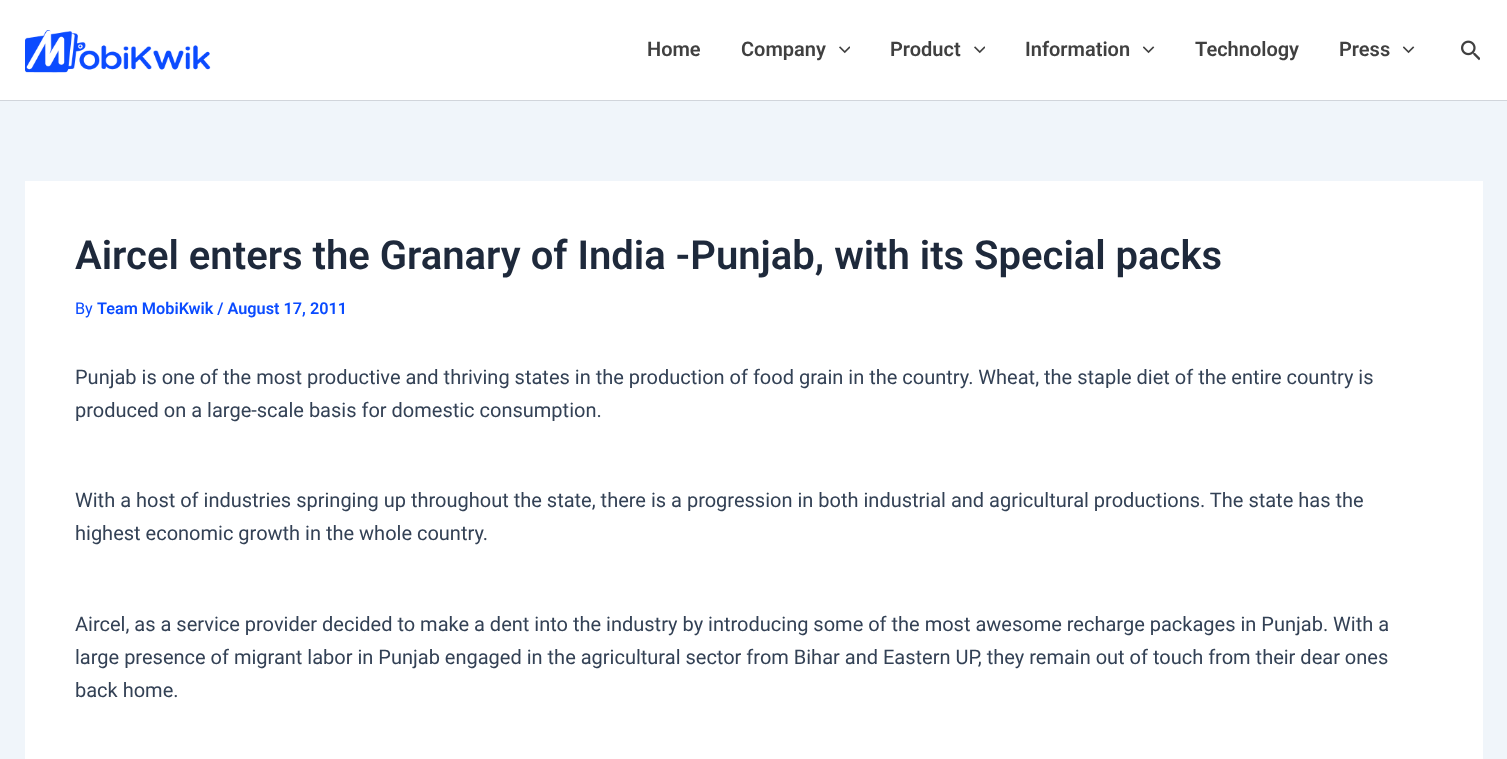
<svg xmlns="http://www.w3.org/2000/svg" width="1507" height="759" viewBox="0 0 1507 759">
  <rect width="100%" height="100%" fill="#f0f5fa"/>
  <rect x="0" y="0" width="1507" height="100" fill="#ffffff"/>
  <rect x="0" y="100" width="1507" height="1" fill="#d1d5db"/>
  <image x="25" y="30" width="186" height="43" href="img1.png"/>
  <text x="647" y="56" font-family="Roboto" font-size="20" font-weight="600" fill="#404040">Home</text>
  <text x="741" y="56" font-family="Roboto" font-size="20" font-weight="600" fill="#404040">Company</text>
  <image x="839" y="46" width="11" height="8" href="img2.png"/>
  <text x="890" y="56" font-family="Roboto" font-size="20" font-weight="600" fill="#404040">Product</text>
  <image x="974" y="46" width="11" height="8" href="img2.png"/>
  <text x="1025" y="56" font-family="Roboto" font-size="20" font-weight="600" fill="#404040">Information</text>
  <image x="1143" y="46" width="12" height="8" href="img3.png"/>
  <text x="1195" y="56" font-family="Roboto" font-size="20" font-weight="600" fill="#404040">Technology</text>
  <text x="1339" y="56" font-family="Roboto" font-size="20" font-weight="600" fill="#404040">Press</text>
  <image x="1403" y="46" width="12" height="8" href="img3.png"/>
  <image x="1461" y="40" width="19" height="21" href="img4.png"/>
  <rect x="25" y="181" width="1458" height="578" fill="#ffffff"/>
  <text x="75" y="269" font-family="Roboto" font-size="40" font-weight="600" fill="#1e293b">Aircel enters the Granary of India -Punjab, with its Special packs</text>
  <text x="75" y="314" font-family="Roboto" font-size="16.25" fill="#0a4bff">By</text>
  <text x="97" y="314" font-family="Roboto" font-size="16.25" font-weight="600" fill="#0a4bff">Team MobiKwik / August 17, 2011</text>
  <text x="75" y="384" font-family="Roboto" font-size="20" fill="#334155">Punjab is one of the most productive and thriving states in the production of food grain in the country. Wheat, the staple diet of the entire country is</text>
  <text x="75" y="417" font-family="Roboto" font-size="20" fill="#334155">produced on a large-scale basis for domestic consumption.</text>
  <text x="75" y="507" font-family="Roboto" font-size="20" fill="#334155">With a host of industries springing up throughout the state, there is a progression in both industrial and agricultural productions. The state has the</text>
  <text x="75" y="540" font-family="Roboto" font-size="20" fill="#334155">highest economic growth in the whole country.</text>
  <text x="75" y="631" font-family="Roboto" font-size="20" fill="#334155">Aircel, as a service provider decided to make a dent into the industry by introducing some of the most awesome recharge packages in Punjab. With a</text>
  <text x="75" y="664" font-family="Roboto" font-size="20" fill="#334155">large presence of migrant labor in Punjab engaged in the agricultural sector from Bihar and Eastern UP, they remain out of touch from their dear ones</text>
  <text x="75" y="697" font-family="Roboto" font-size="20" fill="#334155">back home.</text>
</svg>
